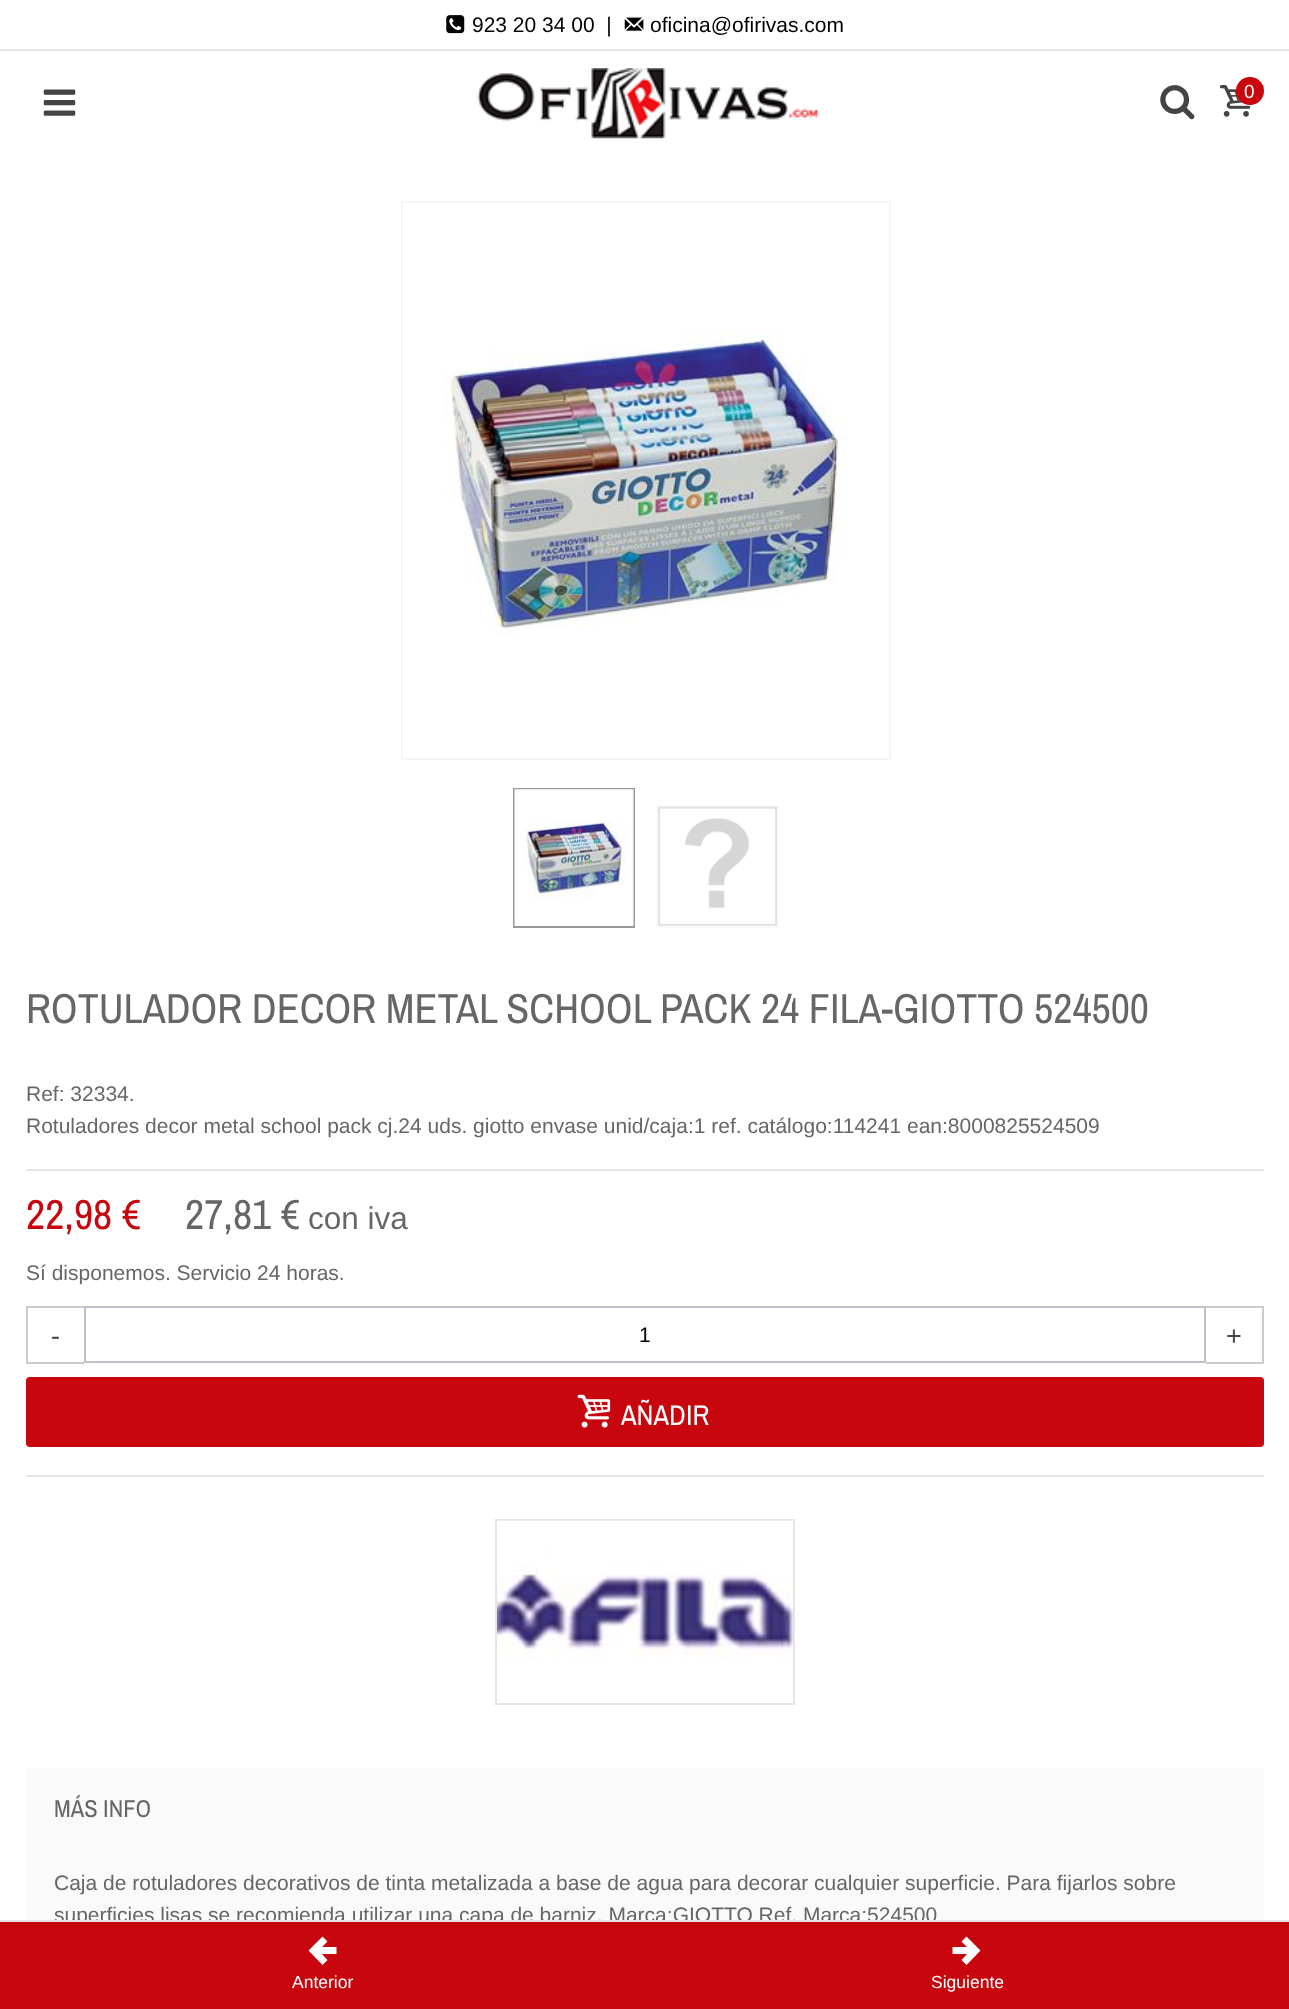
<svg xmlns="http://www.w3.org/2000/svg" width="1289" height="2009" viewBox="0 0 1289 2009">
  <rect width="100%" height="100%" fill="#ffffff"/>
  <rect x="0" y="49" width="1289" height="2" fill="#e5e5e5"/>
  <image x="446" y="15" width="19" height="19" href="img1.png"/>
  <text x="472" y="32" font-family="Liberation Sans" font-size="21" fill="#000000" xml:space="preserve">923 20 34 00  |</text>
  <image x="624" y="17" width="20" height="14" href="img2.png"/>
  <text x="650" y="32" font-family="Liberation Sans" font-size="21" fill="#000000">oficina@ofirivas.com</text>
  <image x="43" y="89" width="33" height="27" href="img3.png"/>
  <image x="477" y="68" width="343" height="71" href="img4.png"/>
  <image x="1160" y="85" width="35" height="35" href="img5.png"/>
  <image x="1219" y="85" width="32" height="32" href="img6.png"/>
  <circle cx="1250" cy="91" r="14" fill="#c7060d"/>
  <text x="1244" y="98" font-family="Liberation Sans" font-size="19" fill="#ffffff">0</text>
  <rect x="402" y="202" width="488" height="557" fill="none" stroke="#f5f5f5" stroke-width="2"/>
  <image x="402" y="203" width="445" height="554" href="img7.png"/>
  <rect x="514" y="789" width="120" height="138" fill="none" stroke="#999999" stroke-width="2"/>
  <image x="514" y="789" width="120" height="137" href="img8.png"/>
  <rect x="657" y="806" width="121" height="121" fill="none" stroke="#f9f9f9" stroke-width="2"/>
  <image x="658" y="806" width="119" height="120" href="img9.png"/>
  <text x="26" y="1023" font-family="Archivo Narrow" font-size="42" fill="#666666">ROTULADOR DECOR METAL SCHOOL PACK 24 FILA-GIOTTO 524500</text>
  <text x="26" y="1101" font-family="Liberation Sans" font-size="21" fill="#666666">Ref: 32334.</text>
  <text x="26" y="1133" font-family="Liberation Sans" font-size="21" fill="#666666">Rotuladores decor metal school pack cj.24 uds. giotto envase unid/caja:1 ref. catálogo:114241 ean:8000825524509</text>
  <rect x="26" y="1169" width="1238" height="2" fill="#e5e5e5"/>
  <text x="26" y="1229" font-family="Archivo Narrow" font-size="42" fill="#c7060d">22,98 €</text>
  <text x="185" y="1229" font-family="Archivo Narrow" font-size="42" fill="#666666">27,81 €</text>
  <text x="308" y="1229" font-family="Liberation Sans" font-size="31.5" fill="#666666">con iva</text>
  <text x="26" y="1280" font-family="Liberation Sans" font-size="21" fill="#666666">Sí disponemos. Servicio 24 horas.</text>
  <rect x="26" y="1475" width="1238" height="2" fill="#e5e5e5"/>
  <rect x="26" y="1306" width="58" height="2" fill="#cccccc"/>
  <rect x="26" y="1362" width="58" height="2" fill="#cccccc"/>
  <rect x="26" y="1306" width="2" height="57" fill="#cccccc"/>
  <text x="51" y="1345" font-family="Liberation Sans" font-size="27" fill="#444444">-</text>
  <rect x="85" y="1307" width="1120" height="55" fill="none" stroke="#bdc2c9" stroke-width="2"/>
  <text x="639" y="1342" font-family="Liberation Sans" font-size="21" fill="#000000">1</text>
  <rect x="1206" y="1306" width="58" height="2" fill="#cccccc"/>
  <rect x="1262" y="1306" width="2" height="57" fill="#cccccc"/>
  <rect x="1206" y="1362" width="58" height="2" fill="#cccccc"/>
  <text x="1226" y="1345" font-family="Liberation Sans" font-size="27" fill="#444444">+</text>
  <rect x="26" y="1377" width="1238" height="70" rx="4" fill="#c7060d"/>
  <image x="577" y="1394" width="34" height="34" href="img10.png"/>
  <text x="621" y="1425" font-family="Archivo Narrow" font-size="28.5" fill="#ffffff">AÑADIR</text>
  <rect x="496" y="1520" width="298" height="184" fill="none" stroke="#e5e5e5" stroke-width="2"/>
  <image x="497" y="1520" width="296" height="141" href="img11.png"/>
  <rect x="26" y="1768" width="1238" height="152" fill="#fafafa"/>
  <text x="54" y="1817" font-family="Archivo Narrow" font-size="24.5" fill="#666666">MÁS INFO</text>
  <text x="54" y="1890" font-family="Liberation Sans" font-size="21" fill="#666666">Caja de rotuladores decorativos de tinta metalizada a base de agua para decorar cualquier superficie. Para fijarlos sobre</text>
  <text x="54" y="1922" font-family="Liberation Sans" font-size="21" fill="#666666">superficies lisas se recomienda utilizar una capa de barniz. Marca:GIOTTO Ref. Marca:524500</text>
  <rect x="0" y="1922" width="1289" height="87" fill="#c7060d"/>
  <rect x="0" y="1920" width="1289" height="2" fill="#e5e5e5"/>
  <path d="M322.5 1965L308.5 1950.5L322.5 1936.5L327.5 1941.5L322 1947H336.5V1954H322L327.5 1960Z" fill="#ffffff"/>
  <text x="292" y="1988" font-family="Liberation Sans" font-size="17.5" fill="#ffffff">Anterior</text>
  <path d="M966.5 1936.5L980.5 1950.5L966.5 1965L961.5 1960L967 1954H952.5V1947H967L961.5 1941.5Z" fill="#ffffff"/>
  <text x="931" y="1988" font-family="Liberation Sans" font-size="17.5" fill="#ffffff">Siguiente</text>
</svg>
